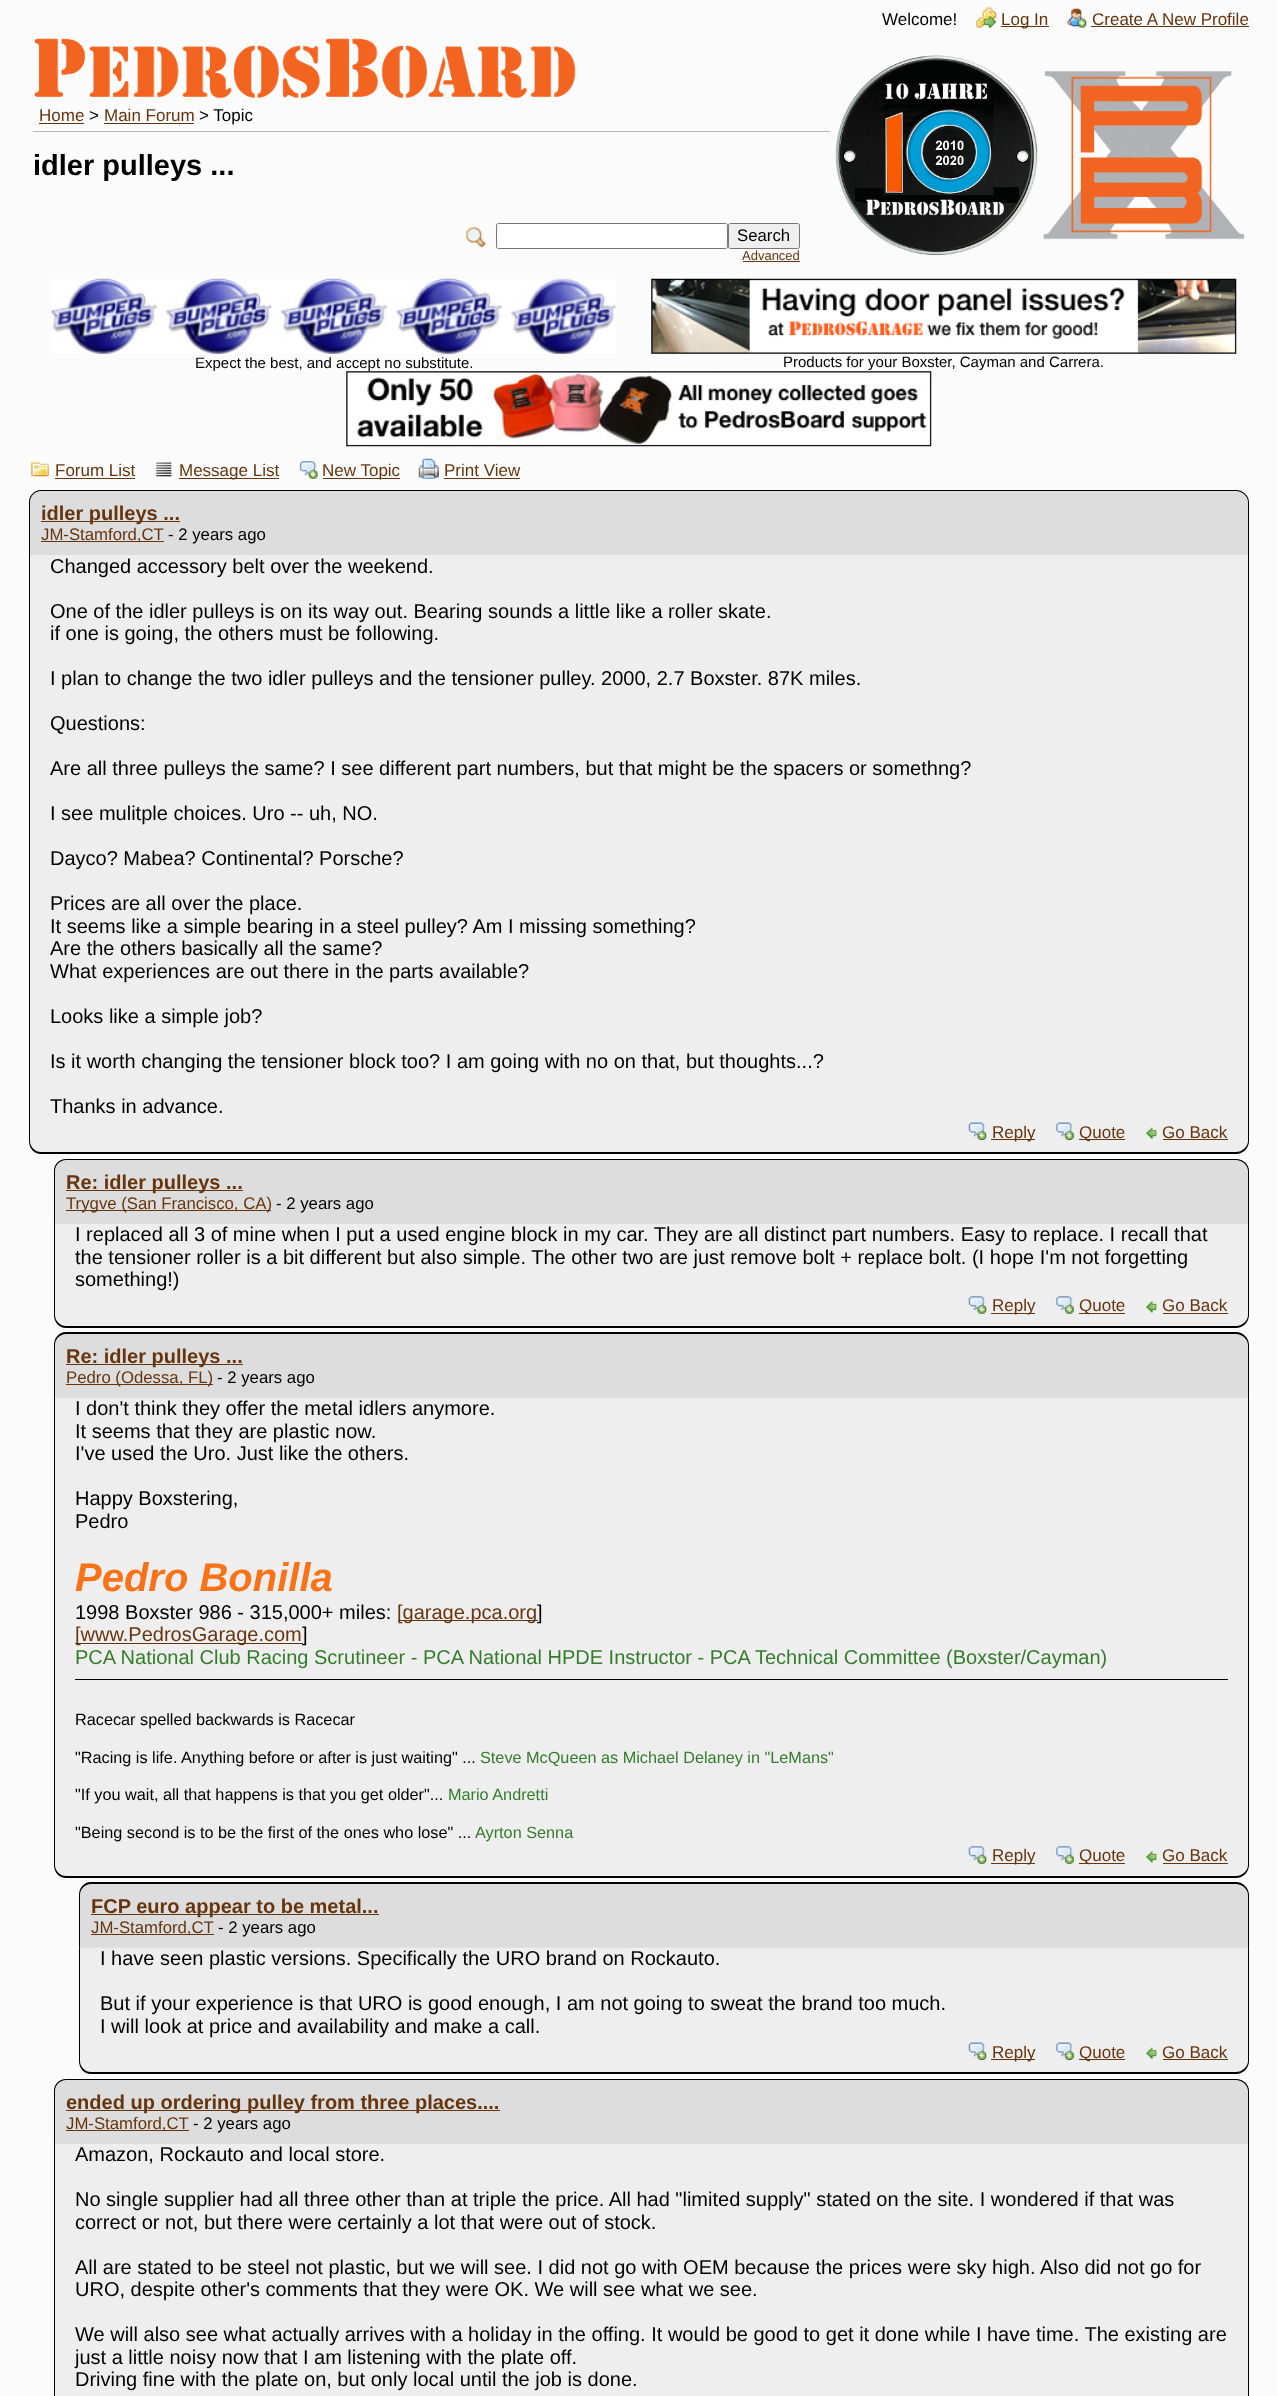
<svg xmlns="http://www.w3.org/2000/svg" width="1277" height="2396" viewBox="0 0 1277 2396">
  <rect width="100%" height="100%" fill="#fbfbfb"/>
  <text x="882" y="25" font-family="Liberation Sans" font-size="17" fill="#000000">Welcome!</text>
  <image x="976" y="7" width="21" height="21" href="img1.png"/>
  <rect x="1001" y="26" width="48" height="1" fill="#66350e"/>
  <text x="1001" y="25" font-family="Liberation Sans" font-size="17" fill="#66350e">Log In</text>
  <image x="1067" y="8" width="20" height="20" href="img2.png"/>
  <text x="1092" y="25" font-family="Liberation Sans" font-size="17" fill="#66350e">Create A New Profile</text>
  <rect x="1091" y="26" width="158" height="1" fill="#66350e"/>
  <image x="34" y="38" width="542" height="61" href="img3.png"/>
  <rect x="33" y="131" width="797" height="1" fill="#b6b6b6"/>
  <text x="39" y="121" font-family="Liberation Sans" font-size="17" fill="#66350e">Home</text>
  <rect x="39" y="123" width="45" height="1" fill="#66350e"/>
  <text x="89" y="121" font-family="Liberation Sans" font-size="17" fill="#000000">&gt;</text>
  <text x="104" y="121" font-family="Liberation Sans" font-size="17" fill="#66350e">Main Forum</text>
  <rect x="104" y="123" width="90" height="1" fill="#66350e"/>
  <text x="199" y="121" font-family="Liberation Sans" font-size="17" fill="#000000">&gt; Topic</text>
  <text x="33" y="175" font-family="Liberation Sans" font-size="29" font-weight="bold" fill="#000000">idler pulleys ...</text>
  <image x="466" y="227" width="20" height="21" href="img4.png"/>
  <rect x="496.5" y="223.5" width="231" height="25" rx="2" fill="#ffffff" stroke="#767676"/>
  <rect x="728.5" y="223.5" width="71" height="25" rx="2" fill="#efefef" stroke="#767676"/>
  <text x="737" y="241" font-family="Liberation Sans" font-size="16.75" fill="#000000">Search</text>
  <text x="742" y="260" font-family="Liberation Sans" font-size="13" fill="#66350e">Advanced</text>
  <rect x="743" y="261" width="57" height="1" fill="#66350e"/>
  <image x="835" y="55" width="203" height="201" href="img5.png"/>
  <image x="1043" y="71" width="202" height="169" href="img6.png"/>
  <image x="51" y="278" width="565" height="76" href="img7.png"/>
  <text x="195" y="368" font-family="Liberation Sans" font-size="15" fill="#000000">Expect the best, and accept no substitute.</text>
  <image x="651" y="278" width="586" height="76" href="img8.png"/>
  <text x="783" y="367" font-family="Liberation Sans" font-size="15" fill="#000000">Products for your Boxster, Cayman and Carrera.</text>
  <image x="346" y="371" width="586" height="76" href="img9.png"/>
  <image x="31" y="462" width="18" height="15" href="img10.png"/>
  <text x="55" y="476" font-family="Liberation Sans" font-size="17" fill="#66350e">Forum List</text>
  <rect x="55" y="478" width="80" height="1" fill="#66350e"/>
  <image x="156" y="462" width="16" height="15" href="img11.png"/>
  <rect x="179" y="478" width="100" height="1" fill="#66350e"/>
  <text x="179" y="476" font-family="Liberation Sans" font-size="17" fill="#66350e">Message List</text>
  <image x="299" y="461" width="19" height="18" href="img12.png"/>
  <rect x="323" y="478" width="77" height="1" fill="#66350e"/>
  <text x="322" y="476" font-family="Liberation Sans" font-size="17" fill="#66350e">New Topic</text>
  <image x="418" y="458" width="21" height="21" href="img13.png"/>
  <text x="444" y="476" font-family="Liberation Sans" font-size="17" fill="#66350e">Print View</text>
  <rect x="444" y="478" width="76" height="1" fill="#66350e"/>
  <path d="M42 490H1236C1243 490 1249 496 1249 503V555H29V503C29 496 35 490 42 490Z" fill="#dddddd"/>
  <path d="M41 490H1236C1243 490 1249 496 1249 502V555H29V502C29 496 34 490 41 490ZM41 491H1236C1242 491 1248 496 1248 502V555H30V502C30 496 35 491 41 491Z" fill="#000000" fill-rule="evenodd"/>
  <rect x="41" y="521" width="139" height="1" fill="#66350e"/>
  <text x="41" y="520" font-family="Liberation Sans" font-size="20" font-weight="bold" fill="#66350e">idler pulleys ...</text>
  <rect x="41" y="541" width="123" height="1" fill="#66350e"/>
  <text x="41" y="540" font-family="Liberation Sans" font-size="16.75" fill="#66350e">JM-Stamford,CT</text>
  <text x="168" y="540" font-family="Liberation Sans" font-size="16.75" fill="#000000">- 2 years ago</text>
  <path d="M29 555H1249V1141C1249 1148 1243 1154 1236 1154H42C35 1154 29 1148 29 1141Z" fill="#eeeeee"/>
  <path d="M29 555H1249V1141C1249 1148 1243 1154 1236 1154H41C34 1154 29 1148 29 1141ZM30 555H1248V1141C1248 1147 1242 1152 1236 1152H41C35 1152 30 1147 30 1141Z" fill="#000000" fill-rule="evenodd"/>
  <text x="50" y="573" font-family="Liberation Sans" font-size="20" fill="#000000">Changed accessory belt over the weekend.</text>
  <text x="50" y="618" font-family="Liberation Sans" font-size="20" fill="#000000">One of the idler pulleys is on its way out. Bearing sounds a little like a roller skate.</text>
  <text x="50" y="640" font-family="Liberation Sans" font-size="20" fill="#000000">if one is going, the others must be following.</text>
  <text x="50" y="685" font-family="Liberation Sans" font-size="20" fill="#000000">I plan to change the two idler pulleys and the tensioner pulley. 2000, 2.7 Boxster. 87K miles.</text>
  <text x="50" y="730" font-family="Liberation Sans" font-size="20" fill="#000000">Questions:</text>
  <text x="50" y="775" font-family="Liberation Sans" font-size="20" fill="#000000">Are all three pulleys the same? I see different part numbers, but that might be the spacers or somethng?</text>
  <text x="50" y="820" font-family="Liberation Sans" font-size="20" fill="#000000">I see mulitple choices. Uro -- uh, NO.</text>
  <text x="50" y="865" font-family="Liberation Sans" font-size="20" fill="#000000">Dayco? Mabea? Continental? Porsche?</text>
  <text x="50" y="910" font-family="Liberation Sans" font-size="20" fill="#000000">Prices are all over the place.</text>
  <text x="50" y="933" font-family="Liberation Sans" font-size="20" fill="#000000">It seems like a simple bearing in a steel pulley? Am I missing something?</text>
  <text x="50" y="955" font-family="Liberation Sans" font-size="20" fill="#000000">Are the others basically all the same?</text>
  <text x="50" y="978" font-family="Liberation Sans" font-size="20" fill="#000000">What experiences are out there in the parts available?</text>
  <text x="50" y="1023" font-family="Liberation Sans" font-size="20" fill="#000000">Looks like a simple job?</text>
  <text x="50" y="1068" font-family="Liberation Sans" font-size="20" fill="#000000">Is it worth changing the tensioner block too? I am going with no on that, but thoughts...?</text>
  <text x="50" y="1113" font-family="Liberation Sans" font-size="20" fill="#000000">Thanks in advance.</text>
  <image x="967" y="1122" width="20" height="18" href="img14.png"/>
  <rect x="991" y="1139" width="44" height="1" fill="#66350e"/>
  <text x="992" y="1138" font-family="Liberation Sans" font-size="17" fill="#66350e">Reply</text>
  <image x="1055" y="1122" width="19" height="18" href="img15.png"/>
  <rect x="1079" y="1139" width="46" height="1" fill="#66350e"/>
  <text x="1079" y="1138" font-family="Liberation Sans" font-size="17" fill="#66350e">Quote</text>
  <image x="1146" y="1127" width="11" height="12" href="img16.png"/>
  <text x="1162" y="1138" font-family="Liberation Sans" font-size="17" fill="#66350e">Go Back</text>
  <rect x="1163" y="1139" width="65" height="1" fill="#66350e"/>
  <path d="M67 1159H1236C1243 1159 1249 1165 1249 1172V1224H54V1172C54 1165 60 1159 67 1159Z" fill="#dddddd"/>
  <path d="M66 1159H1236C1243 1159 1249 1164 1249 1171V1224H54V1171C54 1164 59 1159 66 1159ZM66 1160H1236C1242 1160 1248 1165 1248 1171V1224H55V1171C55 1165 60 1160 66 1160Z" fill="#000000" fill-rule="evenodd"/>
  <rect x="66" y="1190" width="177" height="1" fill="#66350e"/>
  <text x="66" y="1189" font-family="Liberation Sans" font-size="20" font-weight="bold" fill="#66350e">Re: idler pulleys ...</text>
  <rect x="66" y="1210" width="205" height="1" fill="#66350e"/>
  <text x="66" y="1209" font-family="Liberation Sans" font-size="16.75" fill="#66350e">Trygve (San Francisco, CA)</text>
  <text x="276" y="1209" font-family="Liberation Sans" font-size="16.75" fill="#000000">- 2 years ago</text>
  <path d="M54 1224H1249V1315C1249 1322 1243 1328 1236 1328H67C60 1328 54 1322 54 1315Z" fill="#eeeeee"/>
  <image x="54" y="1223" width="1195" height="100" href="img17.png"/>
  <path d="M54 1224H1249V1315C1249 1322 1243 1328 1236 1328H66C59 1328 54 1322 54 1315ZM55 1224H1248V1315C1248 1321 1242 1326 1236 1326H66C60 1326 55 1321 55 1315Z" fill="#000000" fill-rule="evenodd"/>
  <text x="75" y="1241" font-family="Liberation Sans" font-size="20" fill="#000000">I replaced all 3 of mine when I put a used engine block in my car. They are all distinct part numbers. Easy to replace. I recall that</text>
  <text x="75" y="1264" font-family="Liberation Sans" font-size="20" fill="#000000">the tensioner roller is a bit different but also simple. The other two are just remove bolt + replace bolt. (I hope I'm not forgetting</text>
  <text x="75" y="1286" font-family="Liberation Sans" font-size="20" fill="#000000">something!)</text>
  <image x="967" y="1296" width="20" height="18" href="img18.png"/>
  <rect x="991" y="1313" width="44" height="1" fill="#66350e"/>
  <text x="992" y="1311" font-family="Liberation Sans" font-size="17" fill="#66350e">Reply</text>
  <image x="1055" y="1296" width="19" height="18" href="img19.png"/>
  <rect x="1079" y="1313" width="46" height="1" fill="#66350e"/>
  <text x="1079" y="1311" font-family="Liberation Sans" font-size="17" fill="#66350e">Quote</text>
  <image x="1146" y="1301" width="11" height="12" href="img20.png"/>
  <text x="1162" y="1311" font-family="Liberation Sans" font-size="17" fill="#66350e">Go Back</text>
  <rect x="1163" y="1313" width="65" height="1" fill="#66350e"/>
  <path d="M67 1333H1236C1243 1333 1249 1339 1249 1346V1398H54V1346C54 1339 60 1333 67 1333Z" fill="#dddddd"/>
  <path d="M66 1332H1236C1243 1332 1249 1338 1249 1345V1398H54V1345C54 1338 59 1332 66 1332ZM66 1334H1236C1242 1334 1248 1339 1248 1345V1398H55V1345C55 1339 60 1334 66 1334Z" fill="#000000" fill-rule="evenodd"/>
  <rect x="66" y="1364" width="177" height="1" fill="#66350e"/>
  <text x="66" y="1363" font-family="Liberation Sans" font-size="20" font-weight="bold" fill="#66350e">Re: idler pulleys ...</text>
  <rect x="66" y="1384" width="147" height="1" fill="#66350e"/>
  <text x="66" y="1383" font-family="Liberation Sans" font-size="16.75" fill="#66350e">Pedro (Odessa, FL)</text>
  <text x="217" y="1383" font-family="Liberation Sans" font-size="16.75" fill="#000000">- 2 years ago</text>
  <path d="M54 1398H1249V1865C1249 1872 1243 1878 1236 1878H67C60 1878 54 1872 54 1865Z" fill="#eeeeee"/>
  <image x="54" y="1397" width="1195" height="1" href="img21.png"/>
  <path d="M54 1398H1249V1865C1249 1872 1243 1878 1236 1878H66C59 1878 54 1872 54 1865ZM55 1398H1248V1865C1248 1871 1242 1876 1236 1876H66C60 1876 55 1871 55 1865Z" fill="#000000" fill-rule="evenodd"/>
  <text x="75" y="1415" font-family="Liberation Sans" font-size="20" fill="#000000">I don't think they offer the metal idlers anymore.</text>
  <text x="75" y="1438" font-family="Liberation Sans" font-size="20" fill="#000000">It seems that they are plastic now.</text>
  <text x="75" y="1460" font-family="Liberation Sans" font-size="20" fill="#000000">I've used the Uro. Just like the others.</text>
  <text x="75" y="1505" font-family="Liberation Sans" font-size="20" fill="#000000">Happy Boxstering,</text>
  <text x="75" y="1528" font-family="Liberation Sans" font-size="20" fill="#000000">Pedro</text>
  <text x="75" y="1591" font-family="Liberation Sans" font-size="40" font-weight="bold" font-style="italic" fill="#f87217">Pedro Bonilla</text>
  <text x="75" y="1619" font-family="Liberation Sans" font-size="20" fill="#000000">1998 Boxster 986 - 315,000+ miles:</text>
  <rect x="398" y="1620" width="140" height="1" fill="#66350e"/>
  <text x="397" y="1619" font-family="Liberation Sans" font-size="20" fill="#66350e">[garage.pca.org</text>
  <text x="537" y="1619" font-family="Liberation Sans" font-size="20" fill="#000000">]</text>
  <rect x="75" y="1643" width="228" height="1" fill="#66350e"/>
  <text x="75" y="1641" font-family="Liberation Sans" font-size="20" fill="#66350e">[www.PedrosGarage.com</text>
  <text x="302" y="1641" font-family="Liberation Sans" font-size="20" fill="#000000">]</text>
  <text x="75" y="1664" font-family="Liberation Sans" font-size="20" fill="#347c2c">PCA National Club Racing Scrutineer - PCA National HPDE Instructor - PCA Technical Committee (Boxster/Cayman)</text>
  <rect x="75" y="1679" width="1153" height="1" fill="#000000"/>
  <text x="75" y="1725" font-family="Liberation Sans" font-size="16.25" fill="#000000">Racecar spelled backwards is Racecar</text>
  <text x="75" y="1763" font-family="Liberation Sans" font-size="16.25" fill="#000000">"Racing is life. Anything before or after is just waiting" ...</text>
  <text x="480" y="1763" font-family="Liberation Sans" font-size="16.25" fill="#347c2c">Steve McQueen as Michael Delaney in "LeMans"</text>
  <text x="75" y="1800" font-family="Liberation Sans" font-size="16.25" fill="#000000">"If you wait, all that happens is that you get older"...</text>
  <text x="448" y="1800" font-family="Liberation Sans" font-size="16.25" fill="#347c2c">Mario Andretti</text>
  <text x="75" y="1838" font-family="Liberation Sans" font-size="16.25" fill="#000000">"Being second is to be the first of the ones who lose" ...</text>
  <text x="475" y="1838" font-family="Liberation Sans" font-size="16.25" fill="#347c2c">Ayrton Senna</text>
  <image x="967" y="1846" width="20" height="18" href="img22.png"/>
  <rect x="991" y="1863" width="44" height="1" fill="#66350e"/>
  <text x="992" y="1861" font-family="Liberation Sans" font-size="17" fill="#66350e">Reply</text>
  <image x="1055" y="1846" width="19" height="18" href="img23.png"/>
  <rect x="1079" y="1863" width="46" height="1" fill="#66350e"/>
  <text x="1079" y="1861" font-family="Liberation Sans" font-size="17" fill="#66350e">Quote</text>
  <image x="1146" y="1851" width="11" height="12" href="img24.png"/>
  <text x="1162" y="1861" font-family="Liberation Sans" font-size="17" fill="#66350e">Go Back</text>
  <rect x="1163" y="1863" width="65" height="1" fill="#66350e"/>
  <path d="M92 1883H1236C1243 1883 1249 1889 1249 1896V1948H79V1896C79 1889 85 1883 92 1883Z" fill="#dddddd"/>
  <path d="M91 1882H1236C1243 1882 1249 1888 1249 1895V1948H79V1895C79 1888 84 1882 91 1882ZM91 1884H1236C1242 1884 1248 1889 1248 1895V1948H80V1895C80 1889 85 1884 91 1884Z" fill="#000000" fill-rule="evenodd"/>
  <rect x="91" y="1914" width="288" height="1" fill="#66350e"/>
  <text x="91" y="1913" font-family="Liberation Sans" font-size="20" font-weight="bold" fill="#66350e">FCP euro appear to be metal...</text>
  <rect x="91" y="1934" width="123" height="1" fill="#66350e"/>
  <text x="91" y="1933" font-family="Liberation Sans" font-size="16.75" fill="#66350e">JM-Stamford,CT</text>
  <text x="218" y="1933" font-family="Liberation Sans" font-size="16.75" fill="#000000">- 2 years ago</text>
  <path d="M79 1948H1249V2061C1249 2068 1243 2074 1236 2074H92C85 2074 79 2068 79 2061Z" fill="#eeeeee"/>
  <image x="79" y="1947" width="1170" height="1" href="img25.png"/>
  <path d="M79 1948H1249V2061C1249 2068 1243 2074 1236 2074H91C84 2074 79 2068 79 2061ZM80 1948H1248V2061C1248 2067 1242 2072 1236 2072H91C85 2072 80 2067 80 2061Z" fill="#000000" fill-rule="evenodd"/>
  <text x="100" y="1965" font-family="Liberation Sans" font-size="20" fill="#000000">I have seen plastic versions. Specifically the URO brand on Rockauto.</text>
  <text x="100" y="2010" font-family="Liberation Sans" font-size="20" fill="#000000">But if your experience is that URO is good enough, I am not going to sweat the brand too much.</text>
  <text x="100" y="2033" font-family="Liberation Sans" font-size="20" fill="#000000">I will look at price and availability and make a call.</text>
  <image x="967" y="2042" width="20" height="18" href="img14.png"/>
  <rect x="991" y="2059" width="44" height="1" fill="#66350e"/>
  <text x="992" y="2058" font-family="Liberation Sans" font-size="17" fill="#66350e">Reply</text>
  <image x="1055" y="2042" width="19" height="18" href="img15.png"/>
  <rect x="1079" y="2059" width="46" height="1" fill="#66350e"/>
  <text x="1079" y="2058" font-family="Liberation Sans" font-size="17" fill="#66350e">Quote</text>
  <image x="1146" y="2047" width="11" height="12" href="img26.png"/>
  <text x="1162" y="2058" font-family="Liberation Sans" font-size="17" fill="#66350e">Go Back</text>
  <rect x="1163" y="2059" width="65" height="1" fill="#66350e"/>
  <path d="M67 2079H1236C1243 2079 1249 2085 1249 2092V2144H54V2092C54 2085 60 2079 67 2079Z" fill="#dddddd"/>
  <path d="M66 2079H1236C1243 2079 1249 2084 1249 2091V2144H54V2091C54 2084 59 2079 66 2079ZM66 2080H1236C1242 2080 1248 2085 1248 2091V2144H55V2091C55 2085 60 2080 66 2080Z" fill="#000000" fill-rule="evenodd"/>
  <rect x="66" y="2110" width="434" height="1" fill="#66350e"/>
  <text x="66" y="2109" font-family="Liberation Sans" font-size="20" font-weight="bold" fill="#66350e">ended up ordering pulley from three places....</text>
  <rect x="66" y="2130" width="123" height="1" fill="#66350e"/>
  <text x="66" y="2129" font-family="Liberation Sans" font-size="16.75" fill="#66350e">JM-Stamford,CT</text>
  <text x="193" y="2129" font-family="Liberation Sans" font-size="16.75" fill="#000000">- 2 years ago</text>
  <rect x="55" y="2144" width="1193" height="252" fill="#eeeeee"/>
  <image x="54" y="2143" width="1195" height="1" href="img27.png"/>
  <path d="M54 2144H1249V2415C1249 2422 1243 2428 1236 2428H66C59 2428 54 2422 54 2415ZM55 2144H1248V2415C1248 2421 1242 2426 1236 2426H66C60 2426 55 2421 55 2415Z" fill="#000000" fill-rule="evenodd"/>
  <text x="75" y="2161" font-family="Liberation Sans" font-size="20" fill="#000000">Amazon, Rockauto and local store.</text>
  <text x="75" y="2206" font-family="Liberation Sans" font-size="20" fill="#000000">No single supplier had all three other than at triple the price. All had "limited supply" stated on the site. I wondered if that was</text>
  <text x="75" y="2229" font-family="Liberation Sans" font-size="20" fill="#000000">correct or not, but there were certainly a lot that were out of stock.</text>
  <text x="75" y="2274" font-family="Liberation Sans" font-size="20" fill="#000000">All are stated to be steel not plastic, but we will see. I did not go with OEM because the prices were sky high. Also did not go for</text>
  <text x="75" y="2296" font-family="Liberation Sans" font-size="20" fill="#000000">URO, despite other's comments that they were OK. We will see what we see.</text>
  <text x="75" y="2341" font-family="Liberation Sans" font-size="20" fill="#000000">We will also see what actually arrives with a holiday in the offing. It would be good to get it done while I have time. The existing are</text>
  <text x="75" y="2364" font-family="Liberation Sans" font-size="20" fill="#000000">just a little noisy now that I am listening with the plate off.</text>
  <text x="75" y="2386" font-family="Liberation Sans" font-size="20" fill="#000000">Driving fine with the plate on, but only local until the job is done.</text>
</svg>
